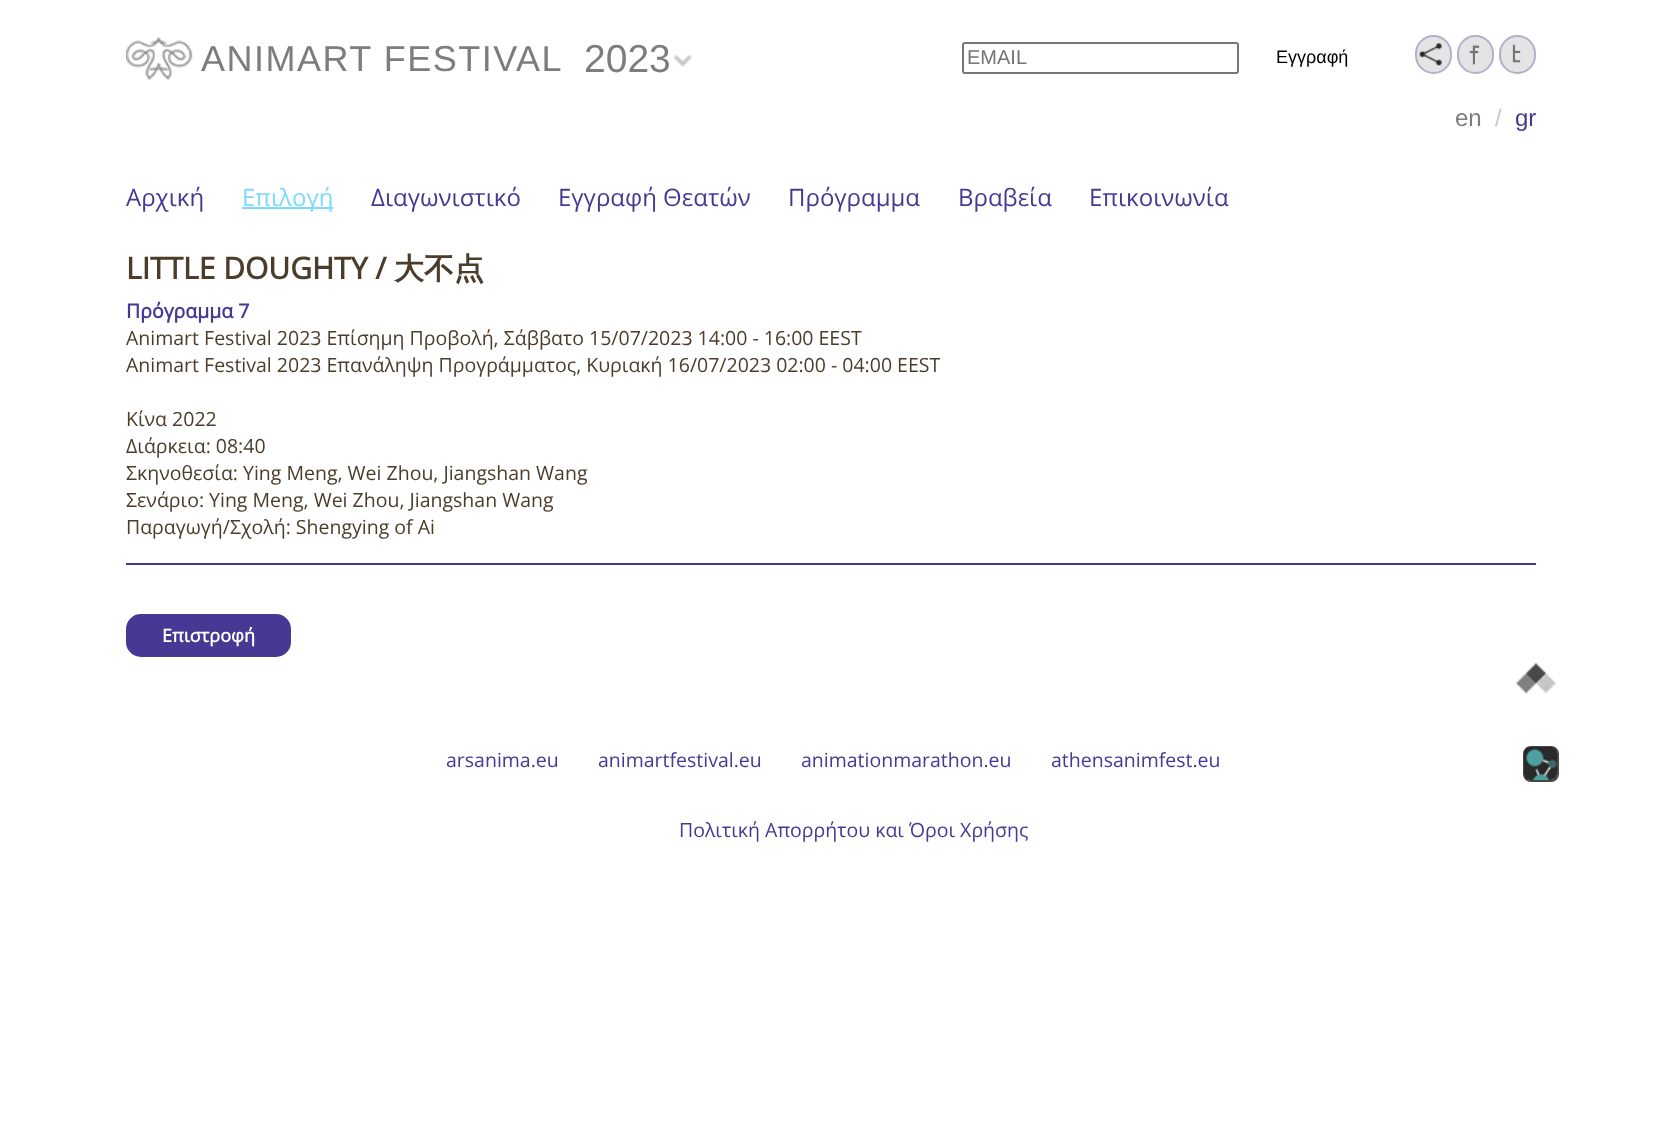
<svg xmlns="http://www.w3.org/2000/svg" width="1662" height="1148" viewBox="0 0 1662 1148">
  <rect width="100%" height="100%" fill="#ffffff"/>
  <image x="126" y="37" width="67" height="43" href="img1.png"/>
  <text x="201" y="71" font-family="Liberation Sans" font-size="36" letter-spacing="1.5" fill="#7d7d7d">ANIMART FESTIVAL</text>
  <image x="673" y="54" width="19" height="13" href="img2.png"/>
  <text x="584" y="72" font-family="Liberation Sans" font-size="39" fill="#7d7d7d">2023</text>
  <rect x="963" y="43" width="275" height="30" rx="2" fill="none" stroke="#767676" stroke-width="2"/>
  <text x="967" y="64" font-family="Liberation Sans" font-size="20" fill="#757575">EMAIL</text>
  <text x="1276" y="63" font-family="Liberation Sans" font-size="18" fill="#000000">Εγγραφή</text>
  <rect x="1415" y="35" width="37" height="39" rx="18.5" fill="#e4e4e4"/>
  <rect x="1416" y="36" width="35" height="37" rx="17.5" fill="none" stroke="#463994" stroke-opacity="0.3" stroke-width="2"/>
  <image x="1419" y="43" width="23" height="23" href="img3.png"/>
  <rect x="1457" y="35" width="37" height="39" rx="18.5" fill="#e4e4e4"/>
  <rect x="1458" y="36" width="35" height="37" rx="17.5" fill="none" stroke="#463994" stroke-opacity="0.3" stroke-width="2"/>
  <image x="1469" y="44" width="11" height="21" href="img4.png"/>
  <rect x="1499" y="35" width="37" height="39" rx="18.5" fill="#e4e4e4"/>
  <rect x="1500" y="36" width="35" height="37" rx="17.5" fill="none" stroke="#463994" stroke-opacity="0.3" stroke-width="2"/>
  <image x="1512" y="44" width="10" height="19" href="img5.png"/>
  <text x="1455" y="126" font-family="Liberation Sans" font-size="24" fill="#7d7d7d">en</text>
  <text x="1495" y="126" font-family="Liberation Sans" font-size="24" fill="#c8c8c8">/</text>
  <text x="1515" y="126" font-family="Liberation Sans" font-size="24" fill="#463994">gr</text>
  <text x="126" y="206" font-family="Open Sans" font-size="24" fill="#463994">Αρχική</text>
  <rect x="242" y="207" width="91" height="2" fill="#7bdaff"/>
  <text x="242" y="206" font-family="Open Sans" font-size="24" fill="#7bdaff">Επιλογή</text>
  <text x="371" y="206" font-family="Open Sans" font-size="24" fill="#463994">Διαγωνιστικό</text>
  <text x="558" y="206" font-family="Open Sans" font-size="24" fill="#463994">Εγγραφή Θεατών</text>
  <text x="788" y="206" font-family="Open Sans" font-size="24" fill="#463994">Πρόγραμμα</text>
  <text x="958" y="206" font-family="Open Sans" font-size="24" fill="#463994">Βραβεία</text>
  <text x="1089" y="206" font-family="Open Sans" font-size="24" fill="#463994">Επικοινωνία</text>
  <text x="126" y="279" font-family="Open Sans" font-size="30" font-weight="bold" fill="#4c3d2b">LITTLE DOUGHTY /</text>
  <text x="394" y="279" font-family="WenQuanYi Zen Hei" font-size="30" font-weight="bold" fill="#4c3d2b">大不点</text>
  <text x="126" y="318" font-family="Open Sans" font-size="19.5" font-weight="bold" fill="#463994">Πρόγραμμα 7</text>
  <text x="126" y="345" font-family="Open Sans" font-size="19.5" fill="#4c3d2b">Animart Festival 2023 Επίσημη Προβολή, Σάββατο 15/07/2023 14:00 - 16:00 EEST</text>
  <text x="126" y="372" font-family="Open Sans" font-size="19.5" fill="#4c3d2b">Animart Festival 2023 Επανάληψη Προγράμματος, Κυριακή 16/07/2023 02:00 - 04:00 EEST</text>
  <text x="126" y="426" font-family="Open Sans" font-size="19.5" fill="#4c3d2b">Κίνα 2022</text>
  <text x="126" y="453" font-family="Open Sans" font-size="19.5" fill="#4c3d2b">Διάρκεια: 08:40</text>
  <text x="126" y="480" font-family="Open Sans" font-size="19.5" fill="#4c3d2b">Σκηνοθεσία: Ying Meng, Wei Zhou, Jiangshan Wang</text>
  <text x="126" y="507" font-family="Open Sans" font-size="19.5" fill="#4c3d2b">Σενάριο: Ying Meng, Wei Zhou, Jiangshan Wang</text>
  <text x="126" y="534" font-family="Open Sans" font-size="19.5" fill="#4c3d2b">Παραγωγή/Σχολή: Shengying of Ai</text>
  <rect x="126" y="563" width="1410" height="2" fill="#463994"/>
  <rect x="126" y="614" width="165" height="43" rx="15" fill="#463994"/>
  <text x="162" y="642" font-family="Open Sans" font-size="18" font-weight="bold" fill="#ffffff">Επιστροφή</text>
  <image x="1516" y="662" width="40" height="32" href="img6.png"/>
  <text x="446" y="767" font-family="Open Sans" font-size="19.5" fill="#463994">arsanima.eu</text>
  <text x="598" y="767" font-family="Open Sans" font-size="19.5" fill="#463994">animartfestival.eu</text>
  <text x="801" y="767" font-family="Open Sans" font-size="19.5" fill="#463994">animationmarathon.eu</text>
  <text x="1051" y="767" font-family="Open Sans" font-size="19.5" fill="#463994">athensanimfest.eu</text>
  <rect x="1524" y="747" width="34" height="34" rx="7" fill="none" stroke="#4b4547" stroke-width="2"/>
  <image x="1524" y="747" width="33" height="33" href="img7.png"/>
  <text x="679" y="837" font-family="Open Sans" font-size="19.5" fill="#463994">Πολιτική Απορρήτου και Όροι Χρήσης</text>
</svg>
